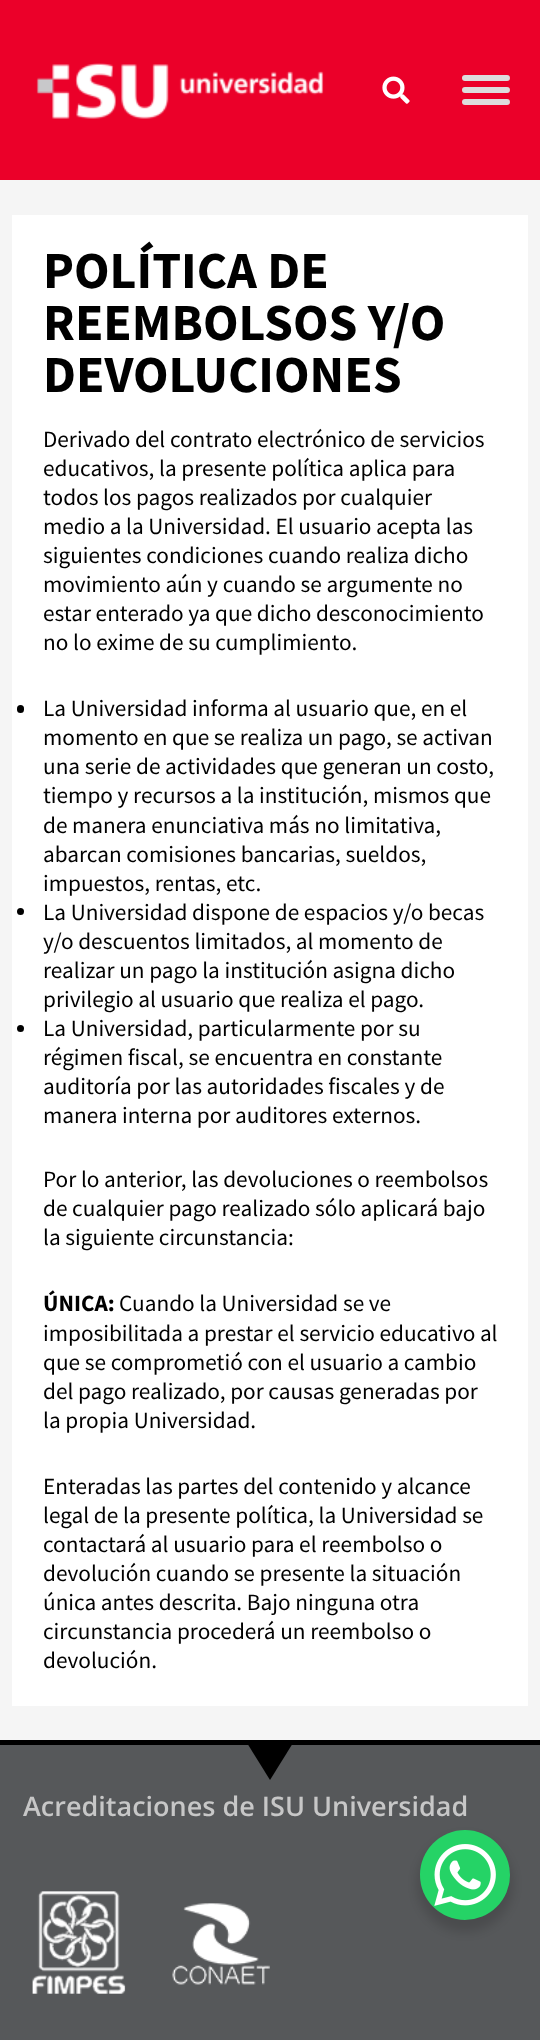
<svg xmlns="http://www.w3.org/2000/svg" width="540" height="2040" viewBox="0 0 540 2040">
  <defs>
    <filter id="blur1" x="-50%" y="-200%" width="200%" height="500%"><feGaussianBlur stdDeviation="6"/></filter>
  </defs>
  <rect width="100%" height="100%" fill="#f5f5f5"/>
  <rect x="0" y="0" width="540" height="180" fill="#eb0029"/>
  <image x="36" y="63" width="288" height="56" href="img1.png"/>
  <image x="382" y="76" width="28" height="28" href="img2.png"/>
  <rect x="462" y="75" width="48" height="6" rx="3" fill="#dddddd"/>
  <rect x="462" y="87" width="48" height="6" rx="3" fill="#dddddd"/>
  <rect x="462" y="99" width="48" height="6" rx="3" fill="#dddddd"/>
  <rect x="12" y="215" width="516" height="1491" fill="#ffffff"/>
  <text x="43" y="288" font-family="Source Sans Pro" font-size="52" font-weight="bold" fill="#000000">POLÍTICA DE</text>
  <text x="43" y="340" font-family="Source Sans Pro" font-size="52" font-weight="bold" fill="#000000">REEMBOLSOS Y/O</text>
  <text x="43" y="392" font-family="Source Sans Pro" font-size="52" font-weight="bold" fill="#000000">DEVOLUCIONES</text>
  <text x="43" y="447" font-family="Source Sans Pro" font-size="23.25" fill="#000000">Derivado del contrato electrónico de servicios</text>
  <text x="43" y="476" font-family="Source Sans Pro" font-size="23.25" fill="#000000">educativos, la presente política aplica para</text>
  <text x="43" y="505" font-family="Source Sans Pro" font-size="23.25" fill="#000000">todos los pagos realizados por cualquier</text>
  <text x="43" y="534" font-family="Source Sans Pro" font-size="23.25" fill="#000000">medio a la Universidad. El usuario acepta las</text>
  <text x="43" y="563" font-family="Source Sans Pro" font-size="23.25" fill="#000000">siguientes condiciones cuando realiza dicho</text>
  <text x="43" y="592" font-family="Source Sans Pro" font-size="23.25" fill="#000000">movimiento aún y cuando se argumente no</text>
  <text x="43" y="621" font-family="Source Sans Pro" font-size="23.25" fill="#000000">estar enterado ya que dicho desconocimiento</text>
  <text x="43" y="650" font-family="Source Sans Pro" font-size="23.25" fill="#000000">no lo exime de su cumplimiento.</text>
  <rect x="17" y="705" width="7" height="8" rx="3.5" fill="#000000"/>
  <text x="43" y="716" font-family="Source Sans Pro" font-size="23.25" fill="#000000">La Universidad informa al usuario que, en el</text>
  <text x="43" y="745" font-family="Source Sans Pro" font-size="23.25" fill="#000000">momento en que se realiza un pago, se activan</text>
  <text x="43" y="774" font-family="Source Sans Pro" font-size="23.25" fill="#000000">una serie de actividades que generan un costo,</text>
  <text x="43" y="803" font-family="Source Sans Pro" font-size="23.25" fill="#000000">tiempo y recursos a la institución, mismos que</text>
  <text x="43" y="833" font-family="Source Sans Pro" font-size="23.25" fill="#000000">de manera enunciativa más no limitativa,</text>
  <text x="43" y="862" font-family="Source Sans Pro" font-size="23.25" fill="#000000">abarcan comisiones bancarias, sueldos,</text>
  <text x="43" y="891" font-family="Source Sans Pro" font-size="23.25" fill="#000000">impuestos, rentas, etc.</text>
  <circle cx="20.5" cy="911.5" r="3.5" fill="#000000"/>
  <text x="43" y="920" font-family="Source Sans Pro" font-size="23.25" fill="#000000">La Universidad dispone de espacios y/o becas</text>
  <text x="43" y="949" font-family="Source Sans Pro" font-size="23.25" fill="#000000">y/o descuentos limitados, al momento de</text>
  <text x="43" y="978" font-family="Source Sans Pro" font-size="23.25" fill="#000000">realizar un pago la institución asigna dicho</text>
  <text x="43" y="1007" font-family="Source Sans Pro" font-size="23.25" fill="#000000">privilegio al usuario que realiza el pago.</text>
  <circle cx="20.5" cy="1028.5" r="3.5" fill="#000000"/>
  <text x="43" y="1036" font-family="Source Sans Pro" font-size="23.25" fill="#000000">La Universidad, particularmente por su</text>
  <text x="43" y="1065" font-family="Source Sans Pro" font-size="23.25" fill="#000000">régimen fiscal, se encuentra en constante</text>
  <text x="43" y="1094" font-family="Source Sans Pro" font-size="23.25" fill="#000000">auditoría por las autoridades fiscales y de</text>
  <text x="43" y="1123" font-family="Source Sans Pro" font-size="23.25" fill="#000000">manera interna por auditores externos.</text>
  <text x="43" y="1187" font-family="Source Sans Pro" font-size="23.25" fill="#000000">Por lo anterior, las devoluciones o reembolsos</text>
  <text x="43" y="1216" font-family="Source Sans Pro" font-size="23.25" fill="#000000">de cualquier pago realizado sólo aplicará bajo</text>
  <text x="43" y="1245" font-family="Source Sans Pro" font-size="23.25" fill="#000000">la siguiente circunstancia:</text>
  <text x="43" y="1311" font-family="Source Sans Pro" font-size="23.25" font-weight="bold" fill="#000000">ÚNICA:</text>
  <text x="119" y="1311" font-family="Source Sans Pro" font-size="23.25" fill="#000000">Cuando la Universidad se ve</text>
  <text x="43" y="1341" font-family="Source Sans Pro" font-size="23.25" fill="#000000">imposibilitada a prestar el servicio educativo al</text>
  <text x="43" y="1370" font-family="Source Sans Pro" font-size="23.25" fill="#000000">que se comprometió con el usuario a cambio</text>
  <text x="43" y="1399" font-family="Source Sans Pro" font-size="23.25" fill="#000000">del pago realizado, por causas generadas por</text>
  <text x="43" y="1428" font-family="Source Sans Pro" font-size="23.25" fill="#000000">la propia Universidad.</text>
  <text x="43" y="1494" font-family="Source Sans Pro" font-size="23.25" fill="#000000">Enteradas las partes del contenido y alcance</text>
  <text x="43" y="1523" font-family="Source Sans Pro" font-size="23.25" fill="#000000">legal de la presente política, la Universidad se</text>
  <text x="43" y="1552" font-family="Source Sans Pro" font-size="23.25" fill="#000000">contactará al usuario para el reembolso o</text>
  <text x="43" y="1581" font-family="Source Sans Pro" font-size="23.25" fill="#000000">devolución cuando se presente la situación</text>
  <text x="43" y="1610" font-family="Source Sans Pro" font-size="23.25" fill="#000000">única antes descrita. Bajo ninguna otra</text>
  <text x="43" y="1639" font-family="Source Sans Pro" font-size="23.25" fill="#000000">circunstancia procederá un reembolso o</text>
  <text x="43" y="1668" font-family="Source Sans Pro" font-size="23.25" fill="#000000">devolución.</text>
  <rect x="0" y="1745" width="540" height="295" fill="#56585a"/>
  <rect x="0" y="1740" width="540" height="5" fill="#000000"/>
  <path d="M270 1780L247 1743H293Z" fill="#000000"/>
  <text x="23" y="1816" font-family="Open Sans" font-size="27" font-weight="600" fill="#c7c7c7">Acreditaciones de ISU Universidad</text>
  <image x="32" y="1891" width="94" height="103" href="img3.png"/>
  <image x="172" y="1903" width="98" height="82" href="img4.png"/>
  <rect x="417" y="1836" width="96" height="96" rx="48" fill="#000000" fill-opacity="0.15" filter="url(#blur1)"/>
  <circle cx="465" cy="1875" r="45" fill="#25d366"/>
  <image x="434" y="1844" width="62" height="62" href="img5.png"/>
</svg>
